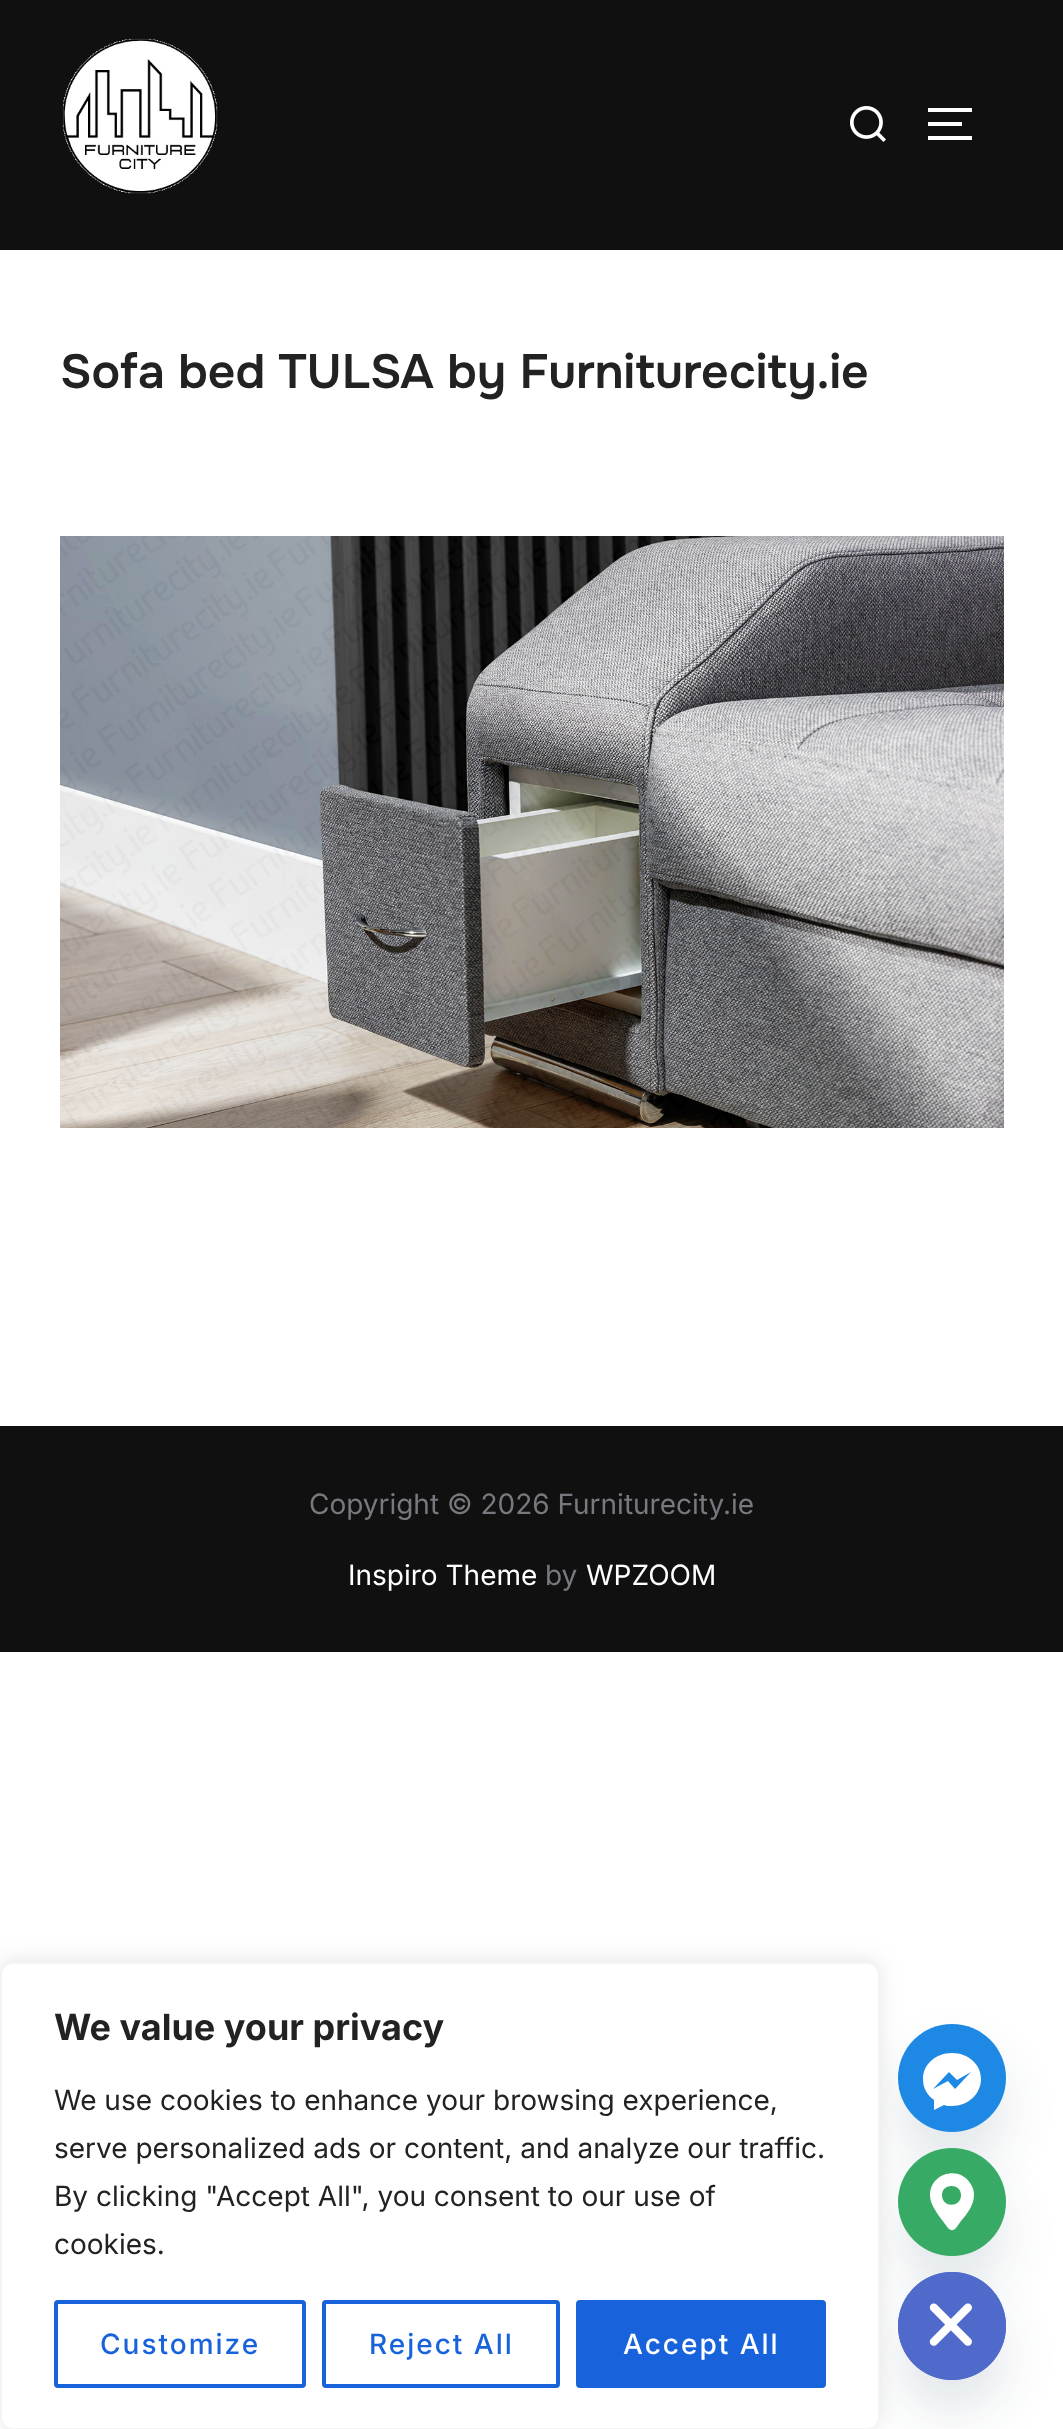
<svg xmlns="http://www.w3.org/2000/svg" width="1063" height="2429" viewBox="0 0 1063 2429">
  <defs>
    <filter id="blur1" x="-50%" y="-200%" width="200%" height="500%"><feGaussianBlur stdDeviation="24"/></filter>
    <filter id="blur2" x="-50%" y="-200%" width="200%" height="500%"><feGaussianBlur stdDeviation="10"/></filter>
  </defs>
  <rect width="100%" height="100%" fill="#ffffff"/>
  <rect x="0" y="0" width="1063" height="250" fill="#101010"/>
  <image x="62" y="38" width="156" height="156" href="img1.png"/>
  <image x="850" y="106" width="36" height="36" href="img2.png"/>
  <rect x="928" y="108" width="44" height="4" fill="#ffffff"/>
  <rect x="928" y="122" width="34" height="4" fill="#ffffff"/>
  <rect x="928" y="136" width="44" height="4" fill="#ffffff"/>
  <text x="60" y="388" font-family="Onest" font-size="48" font-weight="600" fill="#222222">Sofa bed TULSA by Furniturecity.ie</text>
  <image x="60" y="536" width="944" height="592" href="img3.png"/>
  <rect x="0" y="1426" width="1063" height="226" fill="#101010"/>
  <text x="309" y="1514" font-family="Inter" font-size="28" fill="#78787f">Copyright © 2026 Furniturecity.ie</text>
  <text x="348" y="1585" font-family="Inter" font-size="28" fill="#ffffff">Inspiro Theme</text>
  <text x="545" y="1585" font-family="Inter" font-size="28" fill="#78787f">by</text>
  <text x="586" y="1585" font-family="Inter" font-size="28" fill="#ffffff">WPZOOM</text>
  <rect x="898" y="2056" width="108" height="108" rx="54" fill="#49687e" fill-opacity="0.16" filter="url(#blur1)"/>
  <circle cx="952" cy="2078" r="54" fill="#1e88e5"/>
  <path d="M923 2079C923 2064 936 2053 952 2053C968 2053 981 2064 981 2079C981 2094 968 2106 952 2106C949 2106 946 2106 944 2105L934 2110V2100C927 2095 923 2088 923 2079ZM948 2081L955 2089L971 2072L957 2080L949 2072L933 2089Z" fill="#ffffff" fill-rule="evenodd"/>
  <rect x="898" y="2180" width="108" height="108" rx="54" fill="#49687e" fill-opacity="0.16" filter="url(#blur1)"/>
  <circle cx="952" cy="2202" r="54" fill="#37aa66"/>
  <rect x="898" y="2304" width="108" height="108" rx="54" fill="#49687e" fill-opacity="0.16" filter="url(#blur1)"/>
  <path d="M952 2380C922 2380 898 2356 898 2326C898 2296 922 2272 952 2272C982 2272 1006 2296 1006 2326C1006 2356 982 2380 952 2380Z" fill="#4f6aca"/>
  <image x="898" y="2272" width="108" height="108" href="img4.png"/>
  <rect x="0" y="1960" width="880" height="468" rx="12" fill="#acabab" fill-opacity="0.3" filter="url(#blur2)"/>
  <rect x="1" y="1963" width="878" height="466" rx="11" fill="#ffffff" stroke="#f4f4f4" stroke-width="2"/>
  <text x="54" y="2040" font-family="Inter" font-size="36" font-weight="bold" fill="#222222">We value your privacy</text>
  <text x="54" y="2110" font-family="Inter" font-size="28" fill="#222222">We use cookies to enhance your browsing experience,</text>
  <text x="54" y="2158" font-family="Inter" font-size="28" fill="#222222">serve personalized ads or content, and analyze our traffic.</text>
  <text x="54" y="2206" font-family="Inter" font-size="28" fill="#222222">By clicking "Accept All", you consent to our use of</text>
  <text x="54" y="2254" font-family="Inter" font-size="28" fill="#222222">cookies.</text>
  <rect x="56" y="2302" width="248" height="84" rx="2" fill="none" stroke="#1863dc" stroke-width="4"/>
  <text x="100" y="2354" font-family="Inter" font-size="28" font-weight="500" letter-spacing="2" fill="#1863dc">Customize</text>
  <rect x="324" y="2302" width="234" height="84" rx="2" fill="none" stroke="#1863dc" stroke-width="4"/>
  <text x="369" y="2354" font-family="Inter" font-size="28" font-weight="500" letter-spacing="2" fill="#1863dc">Reject All</text>
  <rect x="578" y="2302" width="246" height="84" rx="2" fill="#1863dc" stroke="#1863dc" stroke-width="4"/>
  <text x="623" y="2354" font-family="Inter" font-size="28" font-weight="500" letter-spacing="2" fill="#ffffff">Accept All</text>
  <path d="M930 2195C930 2174 958 2165 970 2183C973 2187 974 2191 974 2195C974 2205 967 2214 961 2221L956 2228C953 2231 951 2231 948 2228L939 2216C935 2210 930 2203 930 2195ZM961 2195C961 2208 942 2208 942 2195C942 2183 961 2183 961 2195Z" fill="#ffffff" fill-rule="evenodd"/>
</svg>
